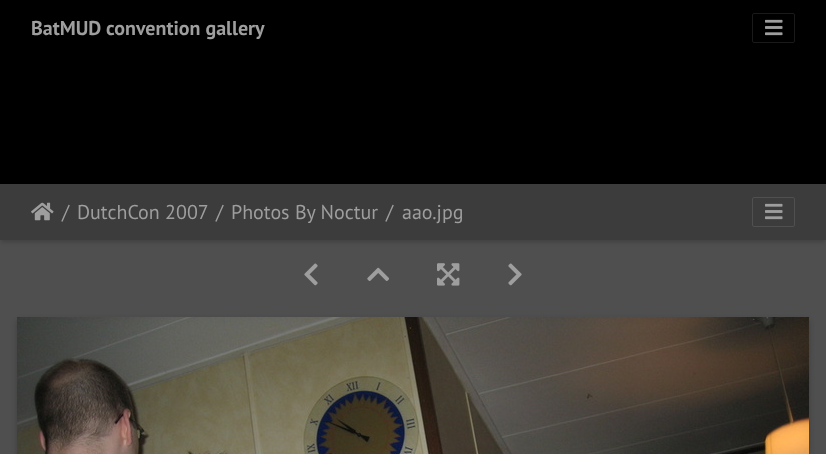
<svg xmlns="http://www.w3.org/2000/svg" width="826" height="454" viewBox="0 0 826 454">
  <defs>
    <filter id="blur1" x="-50%" y="-200%" width="200%" height="500%"><feGaussianBlur stdDeviation="2.5"/></filter>
    <filter id="blur2" x="-50%" y="-200%" width="200%" height="500%"><feGaussianBlur stdDeviation="3"/></filter>
  </defs>
  <rect width="100%" height="100%" fill="#4f4f4f"/>
  <rect x="0" y="0" width="826" height="184" fill="#000000"/>
  <text x="31" y="35" font-family="PT Sans" font-size="20" font-weight="bold" fill="#9e9e9e">BatMUD convention gallery</text>
  <rect x="752.5" y="13.5" width="42" height="29" rx="1.5" fill="none" stroke="#1a1a1a"/>
  <image x="765" y="19" width="18" height="17" href="img1.png"/>
  <rect x="1" y="188" width="824" height="54" fill="#000000" fill-opacity="0.2" filter="url(#blur1)"/>
  <rect x="0" y="184" width="826" height="56" fill="#3c3c3c"/>
  <image x="31" y="202" width="23" height="19" href="img2.png"/>
  <text x="62" y="219" font-family="PT Sans" font-size="20" fill="#9e9e9e">/</text>
  <text x="77" y="219" font-family="PT Sans" font-size="20" fill="#9e9e9e">DutchCon 2007</text>
  <text x="216" y="219" font-family="PT Sans" font-size="20" fill="#9e9e9e">/</text>
  <text x="231" y="219" font-family="PT Sans" font-size="20" fill="#9e9e9e">Photos By Noctur</text>
  <text x="386" y="219" font-family="PT Sans" font-size="20" fill="#9e9e9e">/</text>
  <text x="402" y="219" font-family="PT Sans" font-size="20" fill="#9e9e9e">aao.jpg</text>
  <rect x="752.5" y="197.5" width="42" height="29" rx="1.5" fill="none" stroke="#505050"/>
  <image x="765" y="203" width="18" height="17" href="img3.png"/>
  <image x="304" y="263" width="14" height="23" href="img4.png"/>
  <image x="367" y="267" width="22" height="14" href="img5.png"/>
  <image x="437" y="263" width="23" height="23" href="img6.png"/>
  <image x="508" y="263" width="14" height="23" href="img7.png"/>
  <rect x="17" y="320" width="792" height="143" fill="#000000" fill-opacity="0.23" filter="url(#blur2)"/>
  <image x="17" y="317" width="792" height="137" href="img8.png"/>
</svg>
